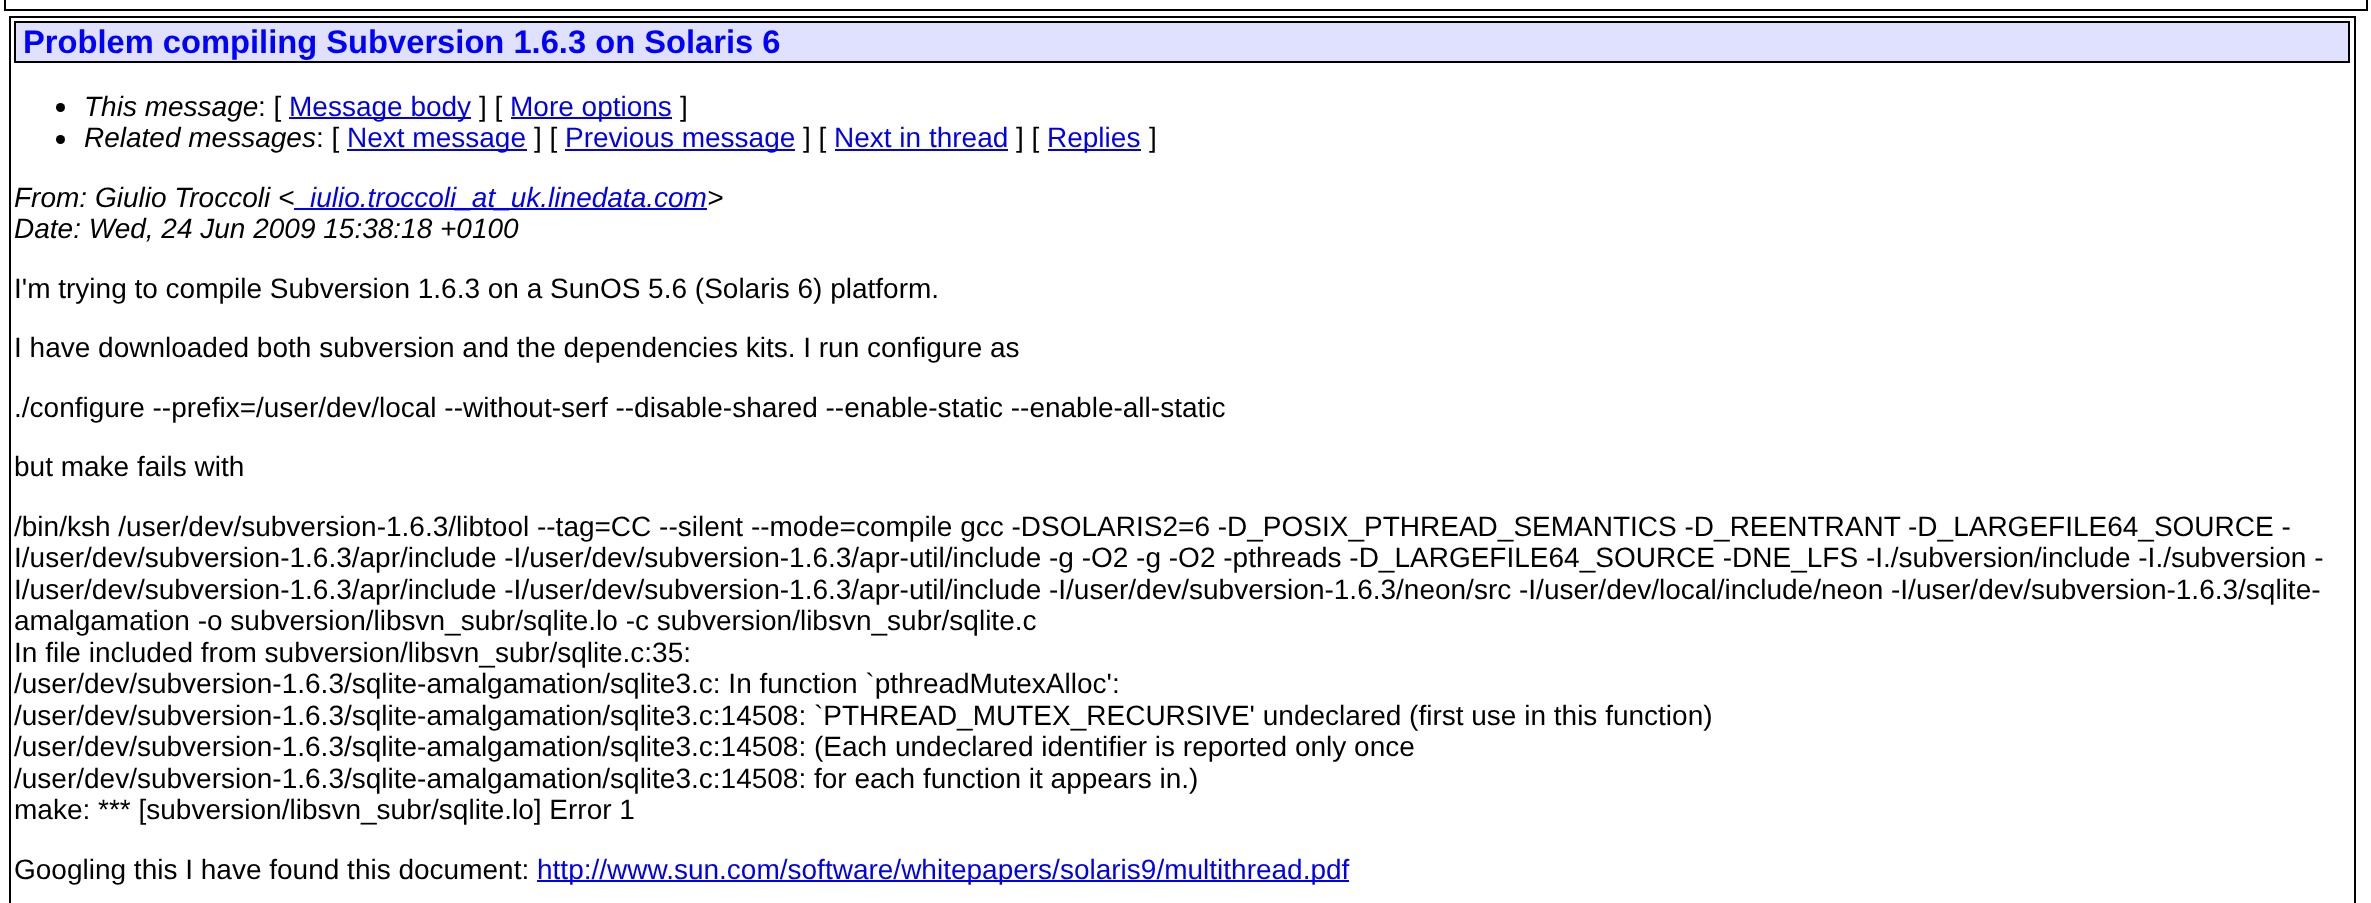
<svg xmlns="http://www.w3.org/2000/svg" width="2371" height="903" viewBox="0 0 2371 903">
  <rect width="100%" height="100%" fill="#ffffff"/>
  <rect x="5" y="-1" width="2362" height="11" fill="none" stroke="#000000" stroke-width="2"/>
  <rect x="10" y="17" width="2345" height="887" fill="none" stroke="#000000" stroke-width="2"/>
  <rect x="15" y="22" width="2334" height="40" fill="#e0e0ff" stroke="#000000" stroke-width="2"/>
  <text x="23" y="53" font-family="Liberation Sans" font-size="32.7" font-weight="bold" fill="#0000ff">Problem compiling Subversion 1.6.3 on Solaris 6</text>
  <circle cx="60.5" cy="107.5" r="4.5" fill="#000000"/>
  <text x="84" y="116" font-family="Liberation Sans" font-size="28" font-style="italic" fill="#000000">This message</text>
  <text x="258" y="116" font-family="Liberation Sans" font-size="28" fill="#000000">: [</text>
  <rect x="289" y="117" width="182" height="2" fill="#0000ee"/>
  <text x="289" y="116" font-family="Liberation Sans" font-size="28" fill="#0000ee">Message body</text>
  <text x="479" y="116" font-family="Liberation Sans" font-size="28" fill="#000000">] [</text>
  <rect x="511" y="117" width="161" height="2" fill="#0000ee"/>
  <text x="510" y="116" font-family="Liberation Sans" font-size="28" fill="#0000ee">More options</text>
  <text x="680" y="116" font-family="Liberation Sans" font-size="28" fill="#000000">]</text>
  <circle cx="60.5" cy="139.5" r="4.5" fill="#000000"/>
  <text x="84" y="147" font-family="Liberation Sans" font-size="28" font-style="italic" fill="#000000">Related messages</text>
  <text x="316" y="147" font-family="Liberation Sans" font-size="28" fill="#000000">: [</text>
  <rect x="347" y="149" width="180" height="2" fill="#0000ee"/>
  <text x="347" y="147" font-family="Liberation Sans" font-size="28" fill="#0000ee">Next message</text>
  <text x="534" y="147" font-family="Liberation Sans" font-size="28" fill="#000000">] [</text>
  <rect x="565" y="149" width="230" height="2" fill="#0000ee"/>
  <text x="565" y="147" font-family="Liberation Sans" font-size="28" fill="#0000ee">Previous message</text>
  <text x="803" y="147" font-family="Liberation Sans" font-size="28" fill="#000000">] [</text>
  <text x="834" y="147" font-family="Liberation Sans" font-size="28" fill="#0000ee">Next in thread</text>
  <rect x="835" y="149" width="173" height="2" fill="#0000ee"/>
  <text x="1016" y="147" font-family="Liberation Sans" font-size="28" fill="#000000">] [</text>
  <rect x="1048" y="149" width="93" height="2" fill="#0000ee"/>
  <text x="1047" y="147" font-family="Liberation Sans" font-size="28" fill="#0000ee">Replies</text>
  <text x="1149" y="147" font-family="Liberation Sans" font-size="28" fill="#000000">]</text>
  <text x="14" y="207" font-family="Liberation Sans" font-size="28" font-style="italic" fill="#000000">From: Giulio Troccoli &lt;</text>
  <rect x="294" y="208" width="413" height="2" fill="#0000ee"/>
  <text x="310" y="207" font-family="Liberation Sans" font-size="28" font-style="italic" fill="#0000ee">iulio.troccoli_at_uk.linedata.com</text>
  <text x="707" y="207" font-family="Liberation Sans" font-size="28" font-style="italic" fill="#000000">&gt;</text>
  <text x="14" y="238" font-family="Liberation Sans" font-size="28" font-style="italic" fill="#000000">Date: Wed, 24 Jun 2009 15:38:18 +0100</text>
  <text x="14" y="298" font-family="Liberation Sans" font-size="28" fill="#000000">I'm trying to compile Subversion 1.6.3 on a SunOS 5.6 (Solaris 6) platform.</text>
  <text x="14" y="357" font-family="Liberation Sans" font-size="28" fill="#000000">I have downloaded both subversion and the dependencies kits. I run configure as</text>
  <text x="14" y="417" font-family="Liberation Sans" font-size="28" fill="#000000">./configure --prefix=/user/dev/local --without-serf --disable-shared --enable-static --enable-all-static</text>
  <text x="14" y="476" font-family="Liberation Sans" font-size="28" fill="#000000">but make fails with</text>
  <text x="14" y="536" font-family="Liberation Sans" font-size="28" fill="#000000">/bin/ksh /user/dev/subversion-1.6.3/libtool --tag=CC --silent --mode=compile gcc -DSOLARIS2=6 -D_POSIX_PTHREAD_SEMANTICS -D_REENTRANT -D_LARGEFILE64_SOURCE -</text>
  <text x="14" y="567" font-family="Liberation Sans" font-size="28" fill="#000000">I/user/dev/subversion-1.6.3/apr/include -I/user/dev/subversion-1.6.3/apr-util/include -g -O2 -g -O2 -pthreads -D_LARGEFILE64_SOURCE -DNE_LFS -I./subversion/include -I./subversion -</text>
  <text x="14" y="599" font-family="Liberation Sans" font-size="28" fill="#000000">I/user/dev/subversion-1.6.3/apr/include -I/user/dev/subversion-1.6.3/apr-util/include -I/user/dev/subversion-1.6.3/neon/src -I/user/dev/local/include/neon -I/user/dev/subversion-1.6.3/sqlite-</text>
  <text x="14" y="630" font-family="Liberation Sans" font-size="28" fill="#000000">amalgamation -o subversion/libsvn_subr/sqlite.lo -c subversion/libsvn_subr/sqlite.c</text>
  <text x="14" y="662" font-family="Liberation Sans" font-size="28" fill="#000000">In file included from subversion/libsvn_subr/sqlite.c:35:</text>
  <text x="14" y="693" font-family="Liberation Sans" font-size="28" fill="#000000">/user/dev/subversion-1.6.3/sqlite-amalgamation/sqlite3.c: In function `pthreadMutexAlloc':</text>
  <text x="14" y="725" font-family="Liberation Sans" font-size="28" fill="#000000">/user/dev/subversion-1.6.3/sqlite-amalgamation/sqlite3.c:14508: `PTHREAD_MUTEX_RECURSIVE' undeclared (first use in this function)</text>
  <text x="14" y="756" font-family="Liberation Sans" font-size="28" fill="#000000">/user/dev/subversion-1.6.3/sqlite-amalgamation/sqlite3.c:14508: (Each undeclared identifier is reported only once</text>
  <text x="14" y="788" font-family="Liberation Sans" font-size="28" fill="#000000">/user/dev/subversion-1.6.3/sqlite-amalgamation/sqlite3.c:14508: for each function it appears in.)</text>
  <text x="14" y="819" font-family="Liberation Sans" font-size="28" fill="#000000">make: *** [subversion/libsvn_subr/sqlite.lo] Error 1</text>
  <text x="14" y="879" font-family="Liberation Sans" font-size="28" fill="#000000">Googling this I have found this document:</text>
  <rect x="537" y="880" width="812" height="2" fill="#0000ee"/>
  <text x="537" y="879" font-family="Liberation Sans" font-size="28" fill="#0000ee">http://www.sun.com/software/whitepapers/solaris9/multithread.pdf</text>
</svg>
